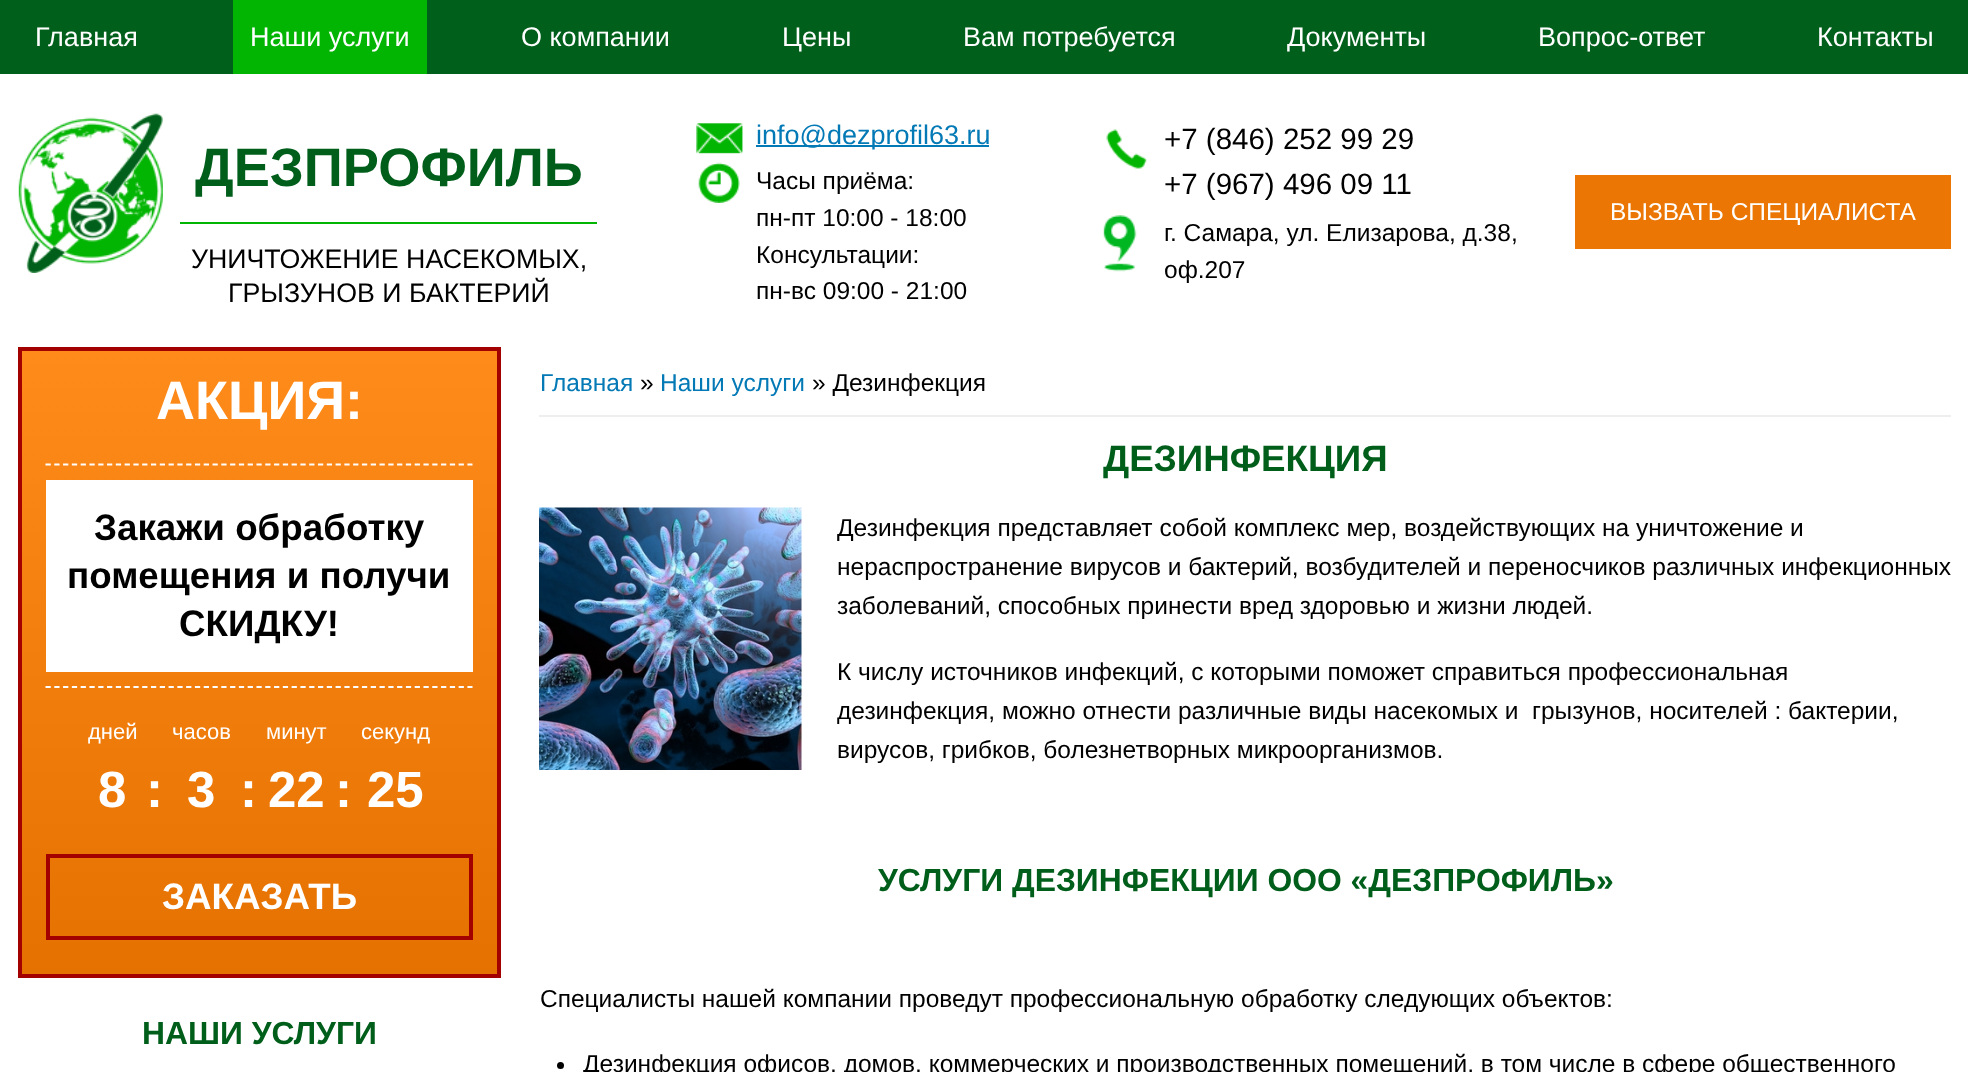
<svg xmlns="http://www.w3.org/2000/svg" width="1968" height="1072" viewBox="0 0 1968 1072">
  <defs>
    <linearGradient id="g1" gradientUnits="userSpaceOnUse" x1="259" y1="350" x2="259" y2="975"><stop offset="0" stop-color="#ff8b1a"/><stop offset="1" stop-color="#e57100"/></linearGradient>
  </defs>
  <rect width="100%" height="100%" fill="#ffffff"/>
  <rect x="0" y="0" width="1968" height="74" fill="#005f1b"/>
  <text x="35" y="46" font-family="Liberation Sans" font-size="27" fill="#ffffff">Главная</text>
  <rect x="233" y="0" width="194" height="74" fill="#03b503"/>
  <text x="250" y="46" font-family="Liberation Sans" font-size="27" fill="#ffffff">Наши услуги</text>
  <text x="521" y="46" font-family="Liberation Sans" font-size="27" fill="#ffffff">О компании</text>
  <text x="782" y="46" font-family="Liberation Sans" font-size="27" fill="#ffffff">Цены</text>
  <text x="963" y="46" font-family="Liberation Sans" font-size="27" fill="#ffffff">Вам потребуется</text>
  <text x="1287" y="46" font-family="Liberation Sans" font-size="27" fill="#ffffff">Документы</text>
  <text x="1538" y="46" font-family="Liberation Sans" font-size="27" fill="#ffffff">Вопрос-ответ</text>
  <text x="1817" y="46" font-family="Liberation Sans" font-size="27" fill="#ffffff">Контакты</text>
  <image x="18" y="113" width="145" height="160" href="img1.png"/>
  <rect x="180" y="222" width="417" height="2" fill="#03b503"/>
  <text x="195" y="186" font-family="Liberation Sans" font-size="54.25" font-weight="bold" fill="#005e1b">ДЕЗПРОФИЛЬ</text>
  <text x="191" y="268" font-family="Liberation Sans" font-size="26.75" fill="#000000">УНИЧТОЖЕНИЕ НАСЕКОМЫХ,</text>
  <text x="228" y="302" font-family="Liberation Sans" font-size="26.75" fill="#000000">ГРЫЗУНОВ И БАКТЕРИЙ</text>
  <image x="696" y="123" width="47" height="31" href="img2.png"/>
  <rect x="756" y="145" width="233" height="2" fill="#0379b5"/>
  <text x="756" y="144" font-family="Liberation Sans" font-size="27" fill="#0379b5">info@dezprofil63.ru</text>
  <image x="698" y="162" width="42" height="41" href="img3.png"/>
  <text x="756" y="189" font-family="Liberation Sans" font-size="24.5" fill="#000000">Часы приёма:</text>
  <text x="756" y="226" font-family="Liberation Sans" font-size="24.5" fill="#000000">пн-пт 10:00 - 18:00</text>
  <text x="756" y="263" font-family="Liberation Sans" font-size="24.5" fill="#000000">Консультации:</text>
  <text x="756" y="299" font-family="Liberation Sans" font-size="24.5" fill="#000000">пн-вс 09:00 - 21:00</text>
  <image x="1106" y="129" width="41" height="40" href="img4.png"/>
  <text x="1164" y="149" font-family="Liberation Sans" font-size="29.5" fill="#000000">+7 (846) 252 99 29</text>
  <text x="1164" y="194" font-family="Liberation Sans" font-size="29.5" fill="#000000">+7 (967) 496 09 11</text>
  <image x="1103" y="215" width="34" height="57" href="img5.png"/>
  <text x="1164" y="241" font-family="Liberation Sans" font-size="24.5" fill="#000000">г. Самара, ул. Елизарова, д.38,</text>
  <text x="1164" y="278" font-family="Liberation Sans" font-size="24.5" fill="#000000">оф.207</text>
  <rect x="1575" y="175" width="376" height="74" fill="#eb7604"/>
  <text x="1610" y="220" font-family="Liberation Sans" font-size="24.5" fill="#ffffff">ВЫЗВАТЬ СПЕЦИАЛИСТА</text>
  <rect x="22" y="351" width="475" height="623" fill="url(#g1)"/>
  <rect x="20" y="349" width="479" height="627" fill="none" stroke="#a20100" stroke-width="4"/>
  <text x="156" y="419" font-family="Liberation Sans" font-size="54" font-weight="bold" fill="#ffffff">АКЦИЯ:</text>
  <path d="M45.5 464.5H472.5" fill="none" stroke="#ffffff" stroke-width="1.8" stroke-dasharray="5.25 3.54"/>
  <path d="M45.5 687H472.5" fill="none" stroke="#ffffff" stroke-width="1.8" stroke-dasharray="5.25 3.54"/>
  <rect x="46" y="480" width="427" height="192" fill="#ffffff"/>
  <text x="94" y="540" font-family="Liberation Sans" font-size="36.75" font-weight="bold" fill="#000000">Закажи обработку</text>
  <text x="67" y="588" font-family="Liberation Sans" font-size="36.75" font-weight="bold" fill="#000000">помещения и получи</text>
  <text x="179" y="636" font-family="Liberation Sans" font-size="36.75" font-weight="bold" fill="#000000">СКИДКУ!</text>
  <text x="88" y="739" font-family="Liberation Sans" font-size="22" fill="#ffffff">дней</text>
  <text x="98" y="807" font-family="Liberation Sans" font-size="51" font-weight="bold" fill="#ffffff">8</text>
  <text x="146" y="807" font-family="Liberation Sans" font-size="51" font-weight="bold" fill="#ffffff">:</text>
  <text x="172" y="739" font-family="Liberation Sans" font-size="22" fill="#ffffff">часов</text>
  <text x="187" y="807" font-family="Liberation Sans" font-size="51" font-weight="bold" fill="#ffffff">3</text>
  <text x="240" y="807" font-family="Liberation Sans" font-size="51" font-weight="bold" fill="#ffffff">:</text>
  <text x="266" y="739" font-family="Liberation Sans" font-size="22" fill="#ffffff">минут</text>
  <text x="268" y="807" font-family="Liberation Sans" font-size="51" font-weight="bold" fill="#ffffff">22</text>
  <text x="335" y="807" font-family="Liberation Sans" font-size="51" font-weight="bold" fill="#ffffff">:</text>
  <text x="361" y="739" font-family="Liberation Sans" font-size="22" fill="#ffffff">секунд</text>
  <text x="367" y="807" font-family="Liberation Sans" font-size="51" font-weight="bold" fill="#ffffff">25</text>
  <rect x="48" y="856" width="423" height="82" fill="none" stroke="#a20100" stroke-width="4"/>
  <text x="162" y="909" font-family="Liberation Sans" font-size="36.75" font-weight="bold" fill="#ffffff">ЗАКАЗАТЬ</text>
  <text x="142" y="1044" font-family="Liberation Sans" font-size="31.85" font-weight="bold" fill="#005e1b">НАШИ УСЛУГИ</text>
  <rect x="539" y="415" width="1412" height="2" fill="#eeeeee"/>
  <text x="540" y="391" font-family="Liberation Sans" font-size="24.5" fill="#0379b5">Главная</text>
  <text x="640" y="391" font-family="Liberation Sans" font-size="24.5" fill="#000000">»</text>
  <text x="660" y="391" font-family="Liberation Sans" font-size="24.5" fill="#0379b5">Наши услуги</text>
  <text x="812" y="391" font-family="Liberation Sans" font-size="24.5" fill="#000000">» Дезинфекция</text>
  <text x="1103" y="471" font-family="Liberation Sans" font-size="36.75" font-weight="bold" fill="#005e1b">ДЕЗИНФЕКЦИЯ</text>
  <image x="539" y="507" width="263" height="263" href="img6.png"/>
  <text x="837" y="536" font-family="Liberation Sans" font-size="24.5" fill="#000000">Дезинфекция представляет собой комплекс мер, воздействующих на уничтожение и</text>
  <text x="837" y="575" font-family="Liberation Sans" font-size="24.5" fill="#000000">нераспространение вирусов и бактерий, возбудителей и переносчиков различных инфекционных</text>
  <text x="837" y="614" font-family="Liberation Sans" font-size="24.5" fill="#000000">заболеваний, способных принести вред здоровью и жизни людей.</text>
  <text x="837" y="680" font-family="Liberation Sans" font-size="24.5" fill="#000000">К числу источников инфекций, с которыми поможет справиться профессиональная</text>
  <text x="837" y="719" font-family="Liberation Sans" font-size="24.5" fill="#000000" xml:space="preserve">дезинфекция, можно отнести различные виды насекомых и  грызунов, носителей : бактерии,</text>
  <text x="837" y="758" font-family="Liberation Sans" font-size="24.5" fill="#000000">вирусов, грибков, болезнетворных микроорганизмов.</text>
  <text x="878" y="891" font-family="Liberation Sans" font-size="31.85" font-weight="bold" fill="#005e1b">УСЛУГИ ДЕЗИНФЕКЦИИ ООО «ДЕЗПРОФИЛЬ»</text>
  <text x="540" y="1007" font-family="Liberation Sans" font-size="24.5" fill="#000000">Специалисты нашей компании проведут профессиональную обработку следующих объектов:</text>
  <circle cx="560.5" cy="1065.5" r="3.5" fill="#000000"/>
  <text x="583" y="1072" font-family="Liberation Sans" font-size="24.5" fill="#000000">Дезинфекция офисов, домов, коммерческих и производственных помещений, в том числе в сфере общественного</text>
</svg>
